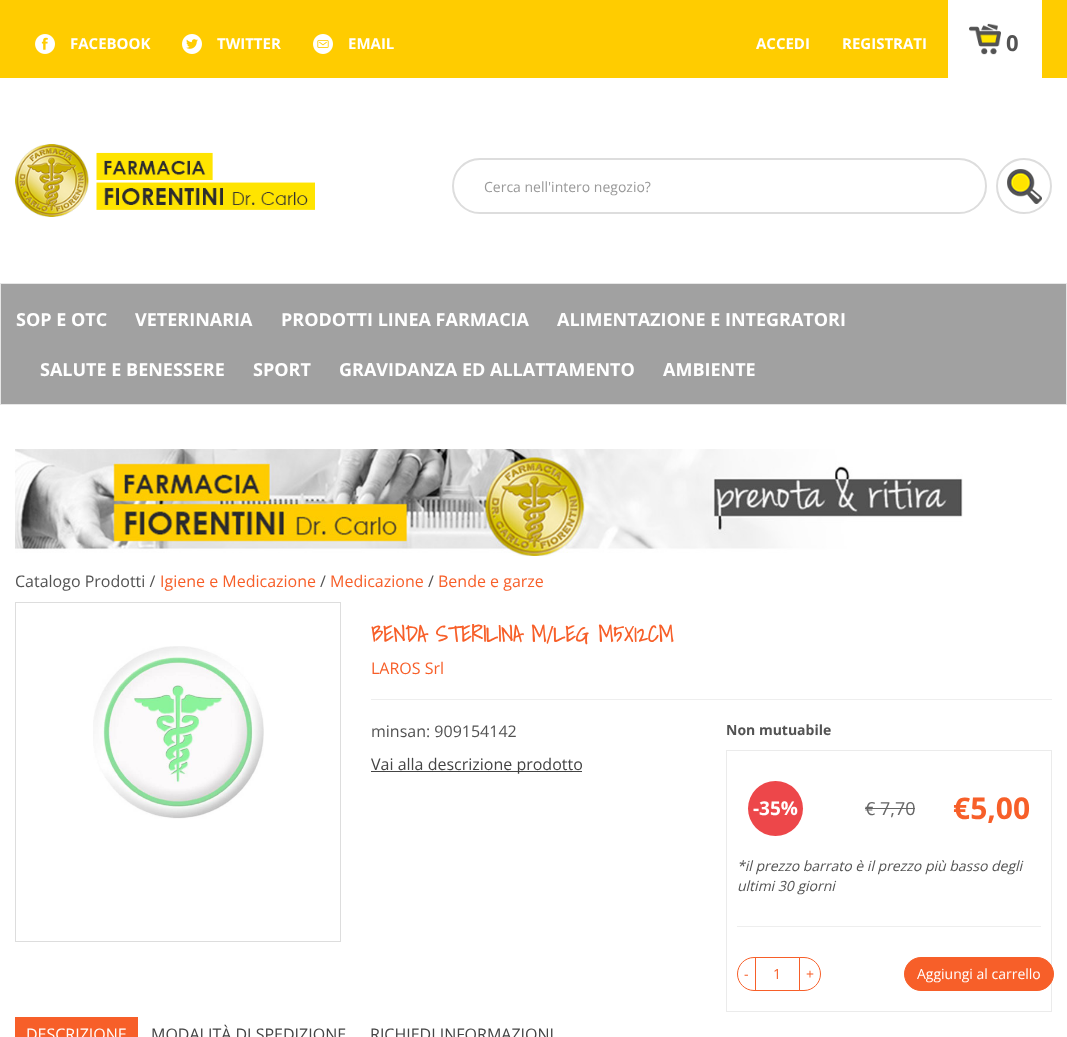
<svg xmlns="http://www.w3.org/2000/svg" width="1067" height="1037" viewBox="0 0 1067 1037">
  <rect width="100%" height="100%" fill="#ffffff"/>
  <rect x="0" y="0" width="1067" height="78" fill="#ffcc00"/>
  <image x="35" y="34" width="20" height="20" href="img1.png"/>
  <text x="70" y="49" font-family="Open Sans" font-size="15" font-weight="bold" fill="#ffffff">FACEBOOK</text>
  <image x="182" y="34" width="20" height="20" href="img2.png"/>
  <text x="217" y="49" font-family="Open Sans" font-size="15" font-weight="bold" fill="#ffffff">TWITTER</text>
  <image x="313" y="34" width="20" height="20" href="img3.png"/>
  <text x="348" y="49" font-family="Open Sans" font-size="15" font-weight="bold" fill="#ffffff">EMAIL</text>
  <text x="756" y="49" font-family="Open Sans" font-size="15" font-weight="bold" fill="#ffffff">ACCEDI</text>
  <text x="842" y="49" font-family="Open Sans" font-size="15" font-weight="bold" fill="#ffffff">REGISTRATI</text>
  <rect x="948" y="0" width="94" height="78" fill="#ffffff"/>
  <image x="969" y="23" width="32" height="32" href="img4.png"/>
  <text x="1006" y="51" font-family="Open Sans" font-size="22" font-weight="bold" fill="#535353">0</text>
  <image x="15" y="144" width="300" height="73" href="img5.png"/>
  <rect x="453" y="159" width="533" height="54" rx="27" fill="none" stroke="#dddddd" stroke-width="2"/>
  <text x="484" y="192" font-family="Open Sans" font-size="14" fill="#999999">Cerca nell'intero negozio?</text>
  <image x="1007" y="169" width="35" height="35" href="img6.png"/>
  <circle cx="1024" cy="186" r="27" fill="none" stroke="#dddddd" stroke-width="2"/>
  <rect x="0.5" y="283.5" width="1066" height="121" fill="#a1a1a1" stroke="#e7e7e7"/>
  <text x="16" y="326" font-family="Open Sans" font-size="18" font-weight="bold" fill="#ffffff">SOP E OTC</text>
  <text x="135" y="326" font-family="Open Sans" font-size="18" font-weight="bold" fill="#ffffff">VETERINARIA</text>
  <text x="281" y="326" font-family="Open Sans" font-size="18" font-weight="bold" fill="#ffffff">PRODOTTI LINEA FARMACIA</text>
  <text x="557" y="326" font-family="Open Sans" font-size="18" font-weight="bold" fill="#ffffff">ALIMENTAZIONE E INTEGRATORI</text>
  <text x="40" y="376" font-family="Open Sans" font-size="18" font-weight="bold" fill="#ffffff">SALUTE E BENESSERE</text>
  <text x="253" y="376" font-family="Open Sans" font-size="18" font-weight="bold" fill="#ffffff">SPORT</text>
  <text x="339" y="376" font-family="Open Sans" font-size="18" font-weight="bold" fill="#ffffff">GRAVIDANZA ED ALLATTAMENTO</text>
  <text x="663" y="376" font-family="Open Sans" font-size="18" font-weight="bold" fill="#ffffff">AMBIENTE</text>
  <image x="15" y="449" width="948" height="107" href="img7.png"/>
  <text x="15" y="587" font-family="Open Sans" font-size="16" fill="#535353">Catalogo Prodotti /</text>
  <text x="160" y="587" font-family="Open Sans" font-size="16" fill="#f75f29">Igiene e Medicazione</text>
  <text x="320" y="587" font-family="Open Sans" font-size="16" fill="#535353">/</text>
  <text x="330" y="587" font-family="Open Sans" font-size="16" fill="#f75f29">Medicazione</text>
  <text x="428" y="587" font-family="Open Sans" font-size="16" fill="#535353">/</text>
  <text x="438" y="587" font-family="Open Sans" font-size="16" fill="#f75f29">Bende e garze</text>
  <rect x="15.5" y="602.5" width="325" height="339" fill="none" stroke="#dddddd"/>
  <image x="93" y="646" width="171" height="173" href="img8.png"/>
  <text x="371" y="642" font-family="Shadows Into Light" font-size="22" font-weight="bold" fill="#f75f29">BENDA STERILINA M/LEG M5X12CM</text>
  <text x="371" y="674" font-family="Open Sans" font-size="16" fill="#f75f29">LAROS Srl</text>
  <rect x="371" y="699" width="681" height="1" fill="#eeeeee"/>
  <text x="371" y="737" font-family="Open Sans" font-size="16" fill="#535353">minsan: 909154142</text>
  <rect x="371" y="771" width="211" height="1" fill="#444444"/>
  <text x="371" y="770" font-family="Open Sans" font-size="16" fill="#444444">Vai alla descrizione prodotto</text>
  <text x="726" y="735" font-family="Open Sans" font-size="14" font-weight="bold" fill="#535353">Non mutuabile</text>
  <rect x="726.5" y="750.5" width="325" height="261" fill="none" stroke="#ebebeb"/>
  <circle cx="775.5" cy="808.5" r="27.5" fill="#ed474a"/>
  <text x="753" y="815" font-family="Open Sans" font-size="19" font-weight="bold" fill="#ffffff">-35%</text>
  <text x="865" y="815" font-family="Open Sans" font-size="18" fill="#666666">€ 7,70</text>
  <rect x="865" y="808" width="50" height="1" fill="#666666"/>
  <text x="953" y="819" font-family="Open Sans" font-size="30" font-weight="bold" fill="#f75f29">€5,00</text>
  <text x="737" y="871" font-family="Open Sans" font-size="14" font-style="italic" fill="#535353">*il prezzo barrato è il prezzo più basso degli</text>
  <text x="737" y="891" font-family="Open Sans" font-size="14" font-style="italic" fill="#535353">ultimi 30 giorni</text>
  <rect x="737" y="926" width="304" height="1" fill="#eeeeee"/>
  <path d="M754 957.5H755.5V990.5H754C745 990.5 737.5 983 737.5 974C737.5 965 745 957.5 754 957.5Z" fill="none" stroke="#f75f29"/>
  <text x="744" y="979" font-family="Open Sans" font-size="14" fill="#f75f29">-</text>
  <rect x="755.5" y="957.5" width="44" height="33" fill="none" stroke="#f75f29"/>
  <text x="773" y="979" font-family="Open Sans" font-size="14" fill="#f75f29">1</text>
  <path d="M799.5 957.5H804C813 957.5 820.5 965 820.5 974C820.5 983 813 990.5 804 990.5H799.5Z" fill="#ffffff" stroke="#f75f29"/>
  <text x="806" y="979" font-family="Open Sans" font-size="14" fill="#f75f29">+</text>
  <rect x="904.5" y="957.5" width="149" height="33" rx="16.5" fill="#f75f29" stroke="#f75f29"/>
  <text x="917" y="979" font-family="Open Sans" font-size="14" fill="#ffffff">Aggiungi al carrello</text>
  <rect x="15" y="1017" width="123" height="20" fill="#f75f29"/>
  <text x="26" y="1040" font-family="Open Sans" font-size="16" fill="#ffffff">DESCRIZIONE</text>
  <text x="151" y="1040" font-family="Open Sans" font-size="16" fill="#444444">MODALITÀ DI SPEDIZIONE</text>
  <text x="370" y="1040" font-family="Open Sans" font-size="16" fill="#444444">RICHIEDI INFORMAZIONI</text>
</svg>
